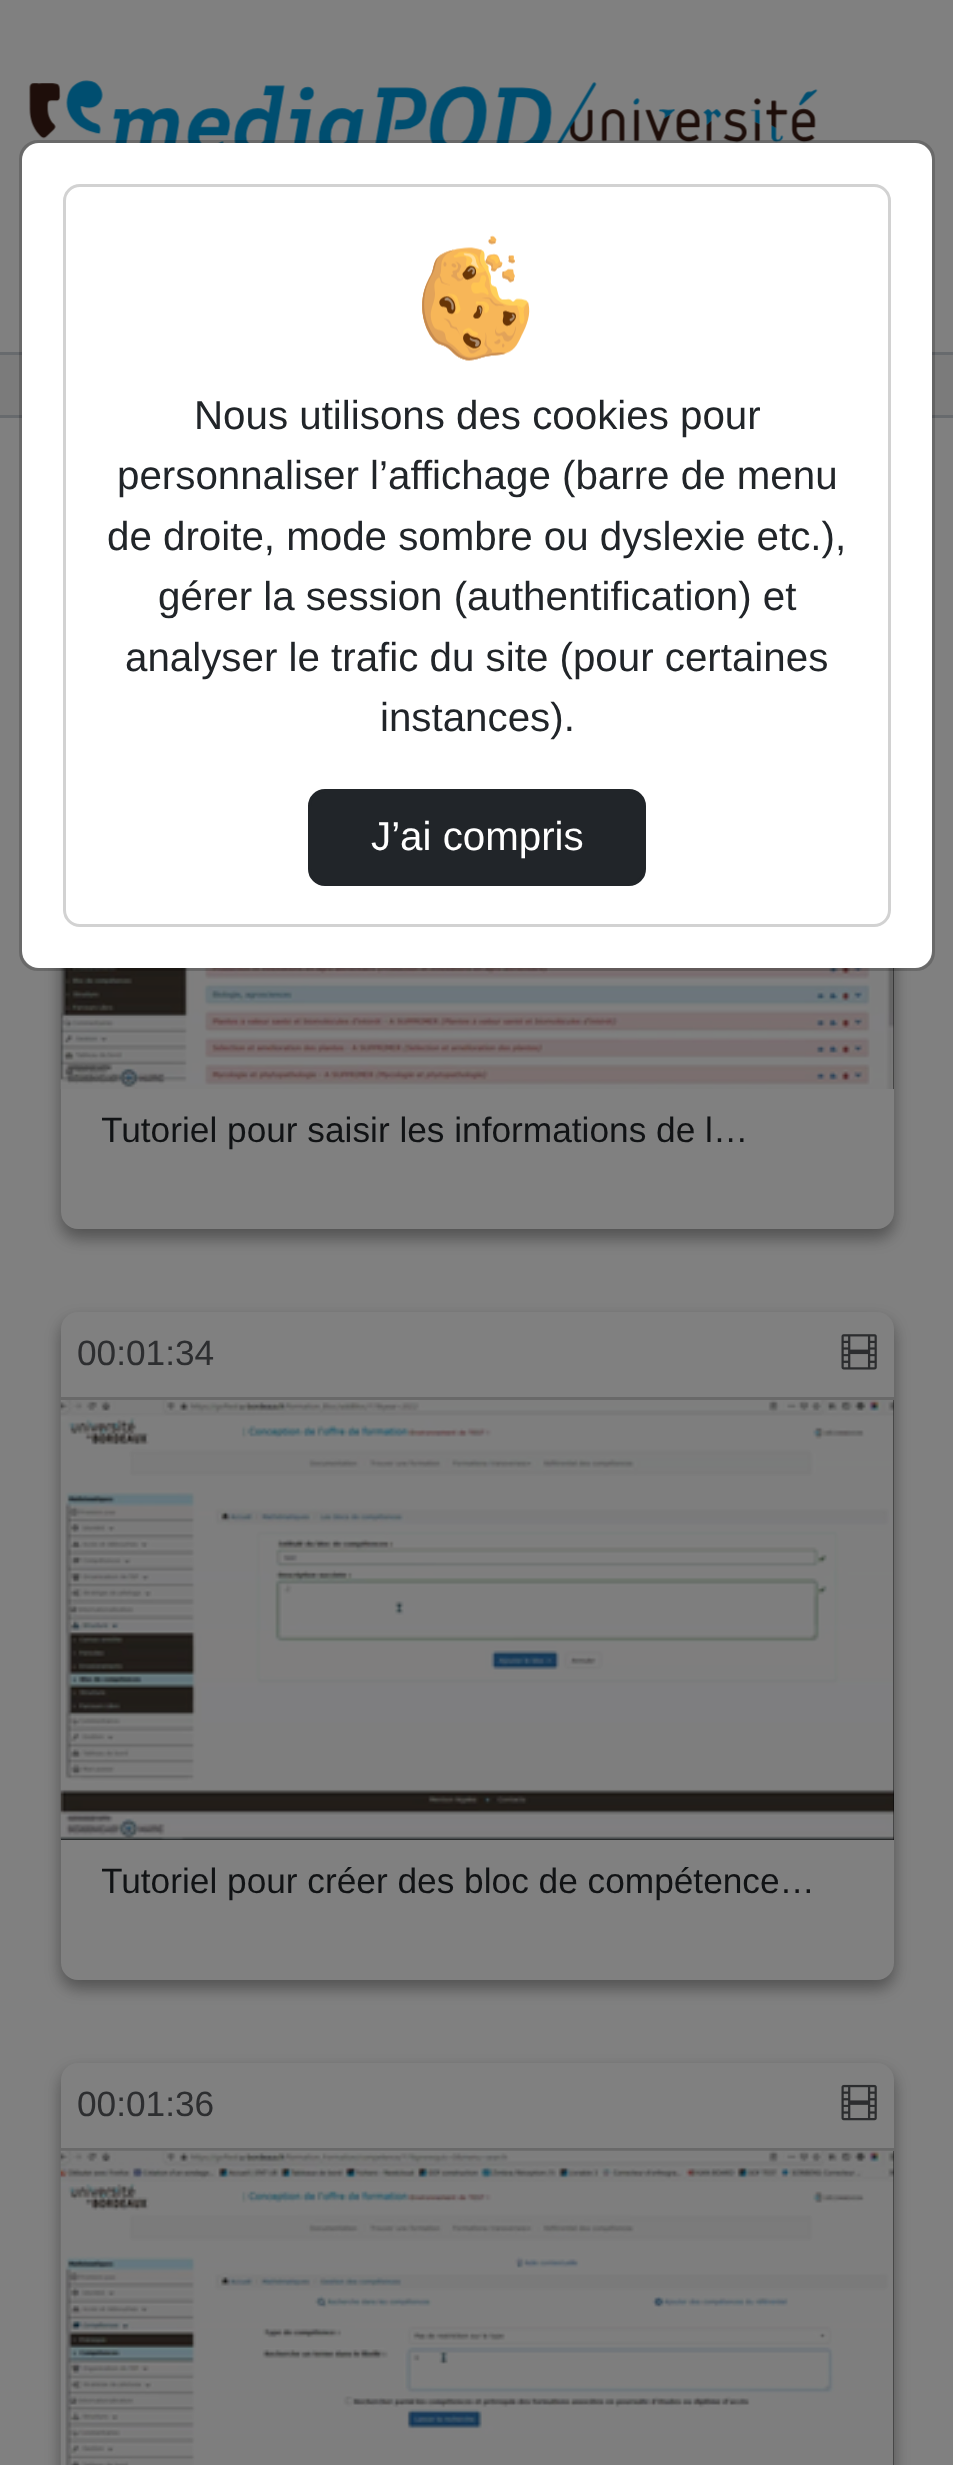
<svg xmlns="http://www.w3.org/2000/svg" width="953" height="2465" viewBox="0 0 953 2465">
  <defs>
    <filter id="blur1" x="-50%" y="-200%" width="200%" height="500%"><feGaussianBlur stdDeviation="8"/></filter>
    <clipPath id="clip1"><rect x="102" y="1108" width="646" height="86"/></clipPath>
    <clipPath id="clip2"><rect x="102" y="1859" width="712" height="85"/></clipPath>
  </defs>
  <rect width="100%" height="100%" fill="#808080"/>
  <rect x="0" y="352" width="953" height="3" fill="#676a6d"/>
  <image x="29" y="80" width="789" height="63" href="img1.png"/>
  <rect x="0" y="355" width="953" height="60" fill="#7b7b7b"/>
  <rect x="0" y="415" width="953" height="3" fill="#676a6d"/>
  <rect x="61" y="591" width="833" height="647" rx="17" fill="#000000" fill-opacity="0.23" filter="url(#blur1)"/>
  <rect x="61" y="591" width="833" height="647" rx="17" fill="#000000" fill-opacity="0.16" filter="url(#blur1)"/>
  <rect x="61" y="583" width="833" height="646" rx="17" fill="#808080"/>
  <rect x="22" y="143" width="910" height="825" rx="17" fill="#ffffff"/>
  <rect x="893" y="968" width="1" height="121" fill="#000000"/>
  <image x="60" y="968" width="834" height="121" href="img3.png"/>
  <rect x="20.5" y="141.5" width="913" height="828" rx="17.5" fill="none" stroke="#000000" stroke-opacity="0.18" stroke-width="3"/>
  <rect x="64.5" y="185.5" width="825" height="740" rx="15.5" fill="none" stroke="#d2d2d2" stroke-width="3"/>
  <image x="422" y="235" width="108" height="126" href="img2.png"/>
  <text x="194" y="429" font-family="Liberation Sans" font-size="40.3" fill="#212529">Nous utilisons des cookies pour</text>
  <text x="117" y="489" font-family="Liberation Sans" font-size="40.3" fill="#212529">personnaliser l’affichage (barre de menu</text>
  <text x="107" y="550" font-family="Liberation Sans" font-size="40.3" fill="#212529">de droite, mode sombre ou dyslexie etc.),</text>
  <text x="158" y="610" font-family="Liberation Sans" font-size="40.3" fill="#212529">gérer la session (authentification) et</text>
  <text x="125" y="671" font-family="Liberation Sans" font-size="40.3" fill="#212529">analyser le trafic du site (pour certaines</text>
  <text x="380" y="731" font-family="Liberation Sans" font-size="40.3" fill="#212529">instances).</text>
  <rect x="309.5" y="790.5" width="335" height="94" rx="15.5" fill="#212529" stroke="#212529" stroke-width="3"/>
  <text x="371" y="850" font-family="Liberation Sans" font-size="40.3" fill="#ffffff">J’ai compris</text>
  <g clip-path="url(#clip1)">
    <text x="101" y="1142" font-family="Liberation Sans" font-size="35.25" fill="#111315">Tutoriel pour saisir les informations de l…</text>
  </g>
  <rect x="61" y="1320" width="833" height="668" rx="17" fill="#000000" fill-opacity="0.23" filter="url(#blur1)"/>
  <rect x="61" y="1320" width="833" height="668" rx="17" fill="#000000" fill-opacity="0.16" filter="url(#blur1)"/>
  <rect x="61" y="1312" width="833" height="668" rx="17" fill="#808080"/>
  <rect x="61" y="1397" width="833" height="3" fill="#696969"/>
  <text x="77" y="1365" font-family="Liberation Sans" font-size="35.25" fill="#2d2e30">00:01:34</text>
  <image x="841" y="1334" width="36" height="36" href="img4.png"/>
  <rect x="61" y="1400" width="833" height="440" fill="#000000"/>
  <image x="60" y="1400" width="834" height="440" href="img5.png"/>
  <g clip-path="url(#clip2)">
    <text x="101" y="1893" font-family="Liberation Sans" font-size="35.25" fill="#111315">Tutoriel pour créer des bloc de compétence…</text>
  </g>
  <rect x="61" y="2071" width="833" height="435" rx="17" fill="#000000" fill-opacity="0.23" filter="url(#blur1)"/>
  <rect x="61" y="2071" width="833" height="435" rx="17" fill="#000000" fill-opacity="0.16" filter="url(#blur1)"/>
  <rect x="61" y="2063" width="833" height="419" rx="17" fill="#808080"/>
  <rect x="61" y="2148" width="833" height="3" fill="#696969"/>
  <text x="77" y="2116" font-family="Liberation Sans" font-size="35.25" fill="#2d2e30">00:01:36</text>
  <image x="841" y="2084" width="36" height="37" href="img6.png"/>
  <rect x="893" y="2151" width="1" height="314" fill="#000000"/>
  <image x="60" y="2150" width="834" height="315" href="img7.png"/>
</svg>
